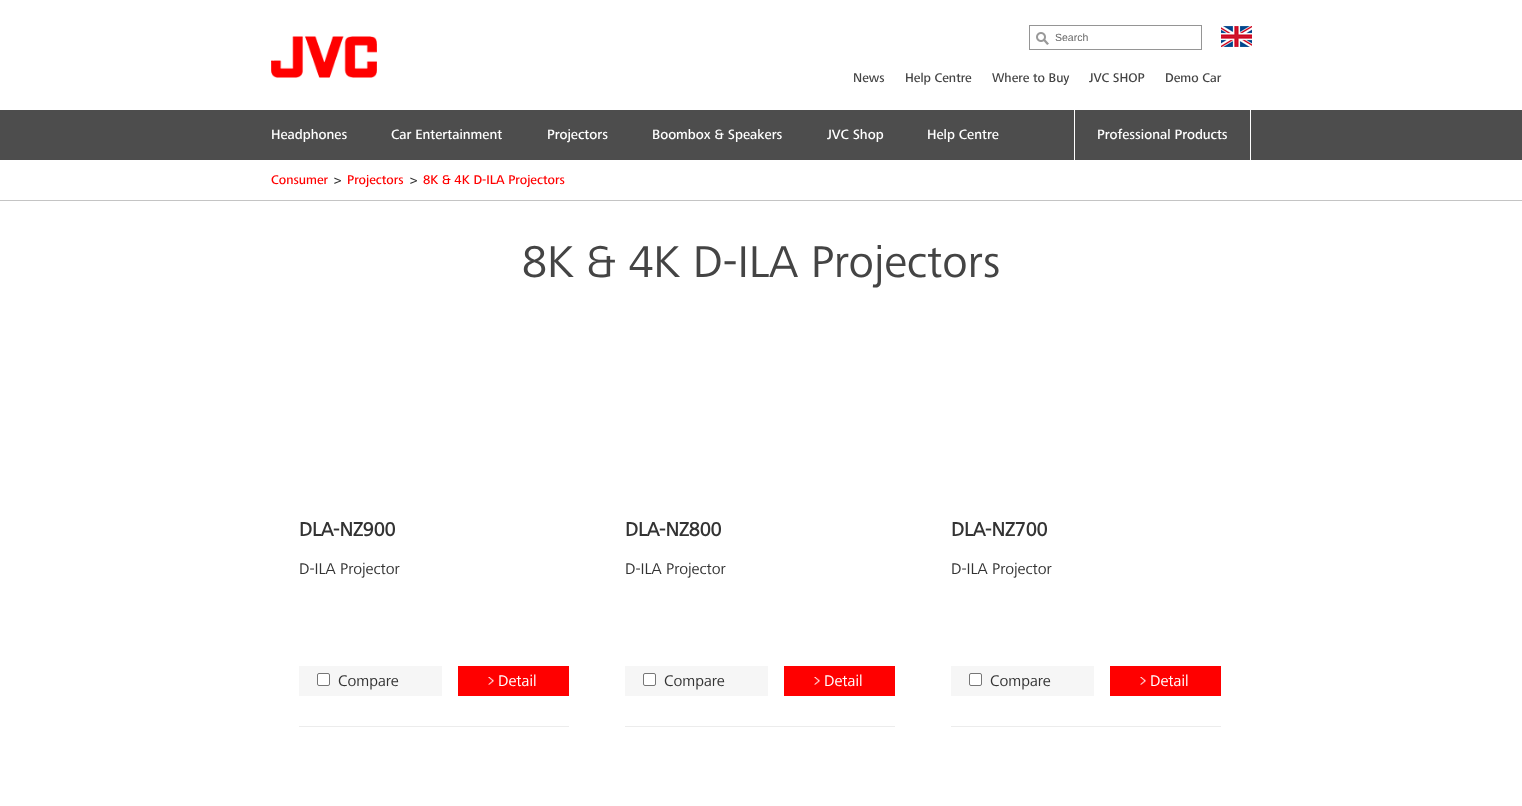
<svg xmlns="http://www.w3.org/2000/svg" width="1522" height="806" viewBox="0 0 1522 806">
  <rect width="100%" height="100%" fill="#ffffff"/>
  <rect x="0" y="200" width="1522" height="1" fill="#c4c4c4"/>
  <image x="1036" y="32" width="13" height="13" href="img1.png"/>
  <rect x="1029.5" y="25.5" width="172" height="24" fill="none" stroke="#959595"/>
  <text x="1055" y="41" font-family="Liberation Sans" font-size="10.5" fill="#666666">Search</text>
  <image x="1221" y="26" width="31" height="21" href="img2.png"/>
  <text x="853" y="82" font-family="'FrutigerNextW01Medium'" font-size="13" font-weight="500" fill="#444444">News</text>
  <text x="905" y="82" font-family="'FrutigerNextW01Medium'" font-size="13" font-weight="500" fill="#444444">Help Centre</text>
  <text x="992" y="82" font-family="'FrutigerNextW01Medium'" font-size="13" font-weight="500" fill="#444444">Where to Buy</text>
  <text x="1089" y="82" font-family="'FrutigerNextW01Medium'" font-size="13" font-weight="500" fill="#444444">JVC SHOP</text>
  <text x="1165" y="82" font-family="'FrutigerNextW01Medium'" font-size="13" font-weight="500" fill="#444444">Demo Car</text>
  <rect x="0" y="110" width="1522" height="50" fill="#4d4d4d"/>
  <text x="271" y="139" font-family="'FrutigerNextW01Medium'" font-size="14" font-weight="500" fill="#ffffff">Headphones</text>
  <text x="391" y="139" font-family="'FrutigerNextW01Medium'" font-size="14" font-weight="500" fill="#ffffff">Car Entertainment</text>
  <text x="547" y="139" font-family="'FrutigerNextW01Medium'" font-size="14" font-weight="500" fill="#ffffff">Projectors</text>
  <text x="652" y="139" font-family="'FrutigerNextW01Medium'" font-size="14" font-weight="500" fill="#ffffff">Boombox &amp; Speakers</text>
  <text x="827" y="139" font-family="'FrutigerNextW01Medium'" font-size="14" font-weight="500" fill="#ffffff">JVC Shop</text>
  <text x="927" y="139" font-family="'FrutigerNextW01Medium'" font-size="14" font-weight="500" fill="#ffffff">Help Centre</text>
  <rect x="1250" y="110" width="1" height="50" fill="#ffffff"/>
  <rect x="1074" y="110" width="1" height="50" fill="#ffffff"/>
  <text x="1097" y="139" font-family="'FrutigerNextW01Medium'" font-size="14" font-weight="500" fill="#ffffff">Professional Products</text>
  <image x="271" y="36" width="106" height="42" href="img3.png"/>
  <text x="271" y="184" font-family="'FrutigerNextW01Medium'" font-size="13" font-weight="500" fill="#ff0000">Consumer</text>
  <text x="334" y="184" font-family="'FrutigerNextW01Medium'" font-size="13" font-weight="500" fill="#333333">&gt;</text>
  <text x="347" y="184" font-family="'FrutigerNextW01Medium'" font-size="13" font-weight="500" fill="#ff0000">Projectors</text>
  <text x="410" y="184" font-family="'FrutigerNextW01Medium'" font-size="13" font-weight="500" fill="#333333">&gt;</text>
  <text x="423" y="184" font-family="'FrutigerNextW01Medium'" font-size="13" font-weight="500" fill="#ff0000">8K &amp; 4K D-ILA Projectors</text>
  <text x="522" y="277" font-family="'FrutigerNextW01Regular'" font-size="46" fill="#444444">8K &amp; 4K D-ILA Projectors</text>
  <text x="299" y="536" font-family="'FrutigerNextW01Regular'" font-size="20" font-weight="bold" fill="#333333">DLA-NZ900</text>
  <text x="299" y="574" font-family="'FrutigerNextW01Regular'" font-size="16" fill="#333333">D-ILA Projector</text>
  <rect x="299" y="726" width="270" height="1" fill="#ececec"/>
  <rect x="299" y="666" width="143" height="30" fill="#f6f6f6"/>
  <rect x="317.5" y="673.5" width="12" height="12" rx="1.5" fill="#ffffff" stroke="#767676"/>
  <text x="338" y="686" font-family="'FrutigerNextW01Regular'" font-size="16" fill="#333333">Compare</text>
  <rect x="458" y="666" width="111" height="30" fill="#ff0000"/>
  <image x="488" y="677" width="6" height="8" href="img4.png"/>
  <text x="498" y="686" font-family="'FrutigerNextW01Regular'" font-size="16" fill="#ffffff">Detail</text>
  <text x="625" y="536" font-family="'FrutigerNextW01Regular'" font-size="20" font-weight="bold" fill="#333333">DLA-NZ800</text>
  <text x="625" y="574" font-family="'FrutigerNextW01Regular'" font-size="16" fill="#333333">D-ILA Projector</text>
  <rect x="625" y="726" width="270" height="1" fill="#ececec"/>
  <rect x="625" y="666" width="143" height="30" fill="#f6f6f6"/>
  <rect x="643.5" y="673.5" width="12" height="12" rx="1.5" fill="#ffffff" stroke="#767676"/>
  <text x="664" y="686" font-family="'FrutigerNextW01Regular'" font-size="16" fill="#333333">Compare</text>
  <rect x="784" y="666" width="111" height="30" fill="#ff0000"/>
  <image x="814" y="677" width="6" height="8" href="img4.png"/>
  <text x="824" y="686" font-family="'FrutigerNextW01Regular'" font-size="16" fill="#ffffff">Detail</text>
  <text x="951" y="536" font-family="'FrutigerNextW01Regular'" font-size="20" font-weight="bold" fill="#333333">DLA-NZ700</text>
  <text x="951" y="574" font-family="'FrutigerNextW01Regular'" font-size="16" fill="#333333">D-ILA Projector</text>
  <rect x="951" y="726" width="270" height="1" fill="#ececec"/>
  <rect x="951" y="666" width="143" height="30" fill="#f6f6f6"/>
  <rect x="969.5" y="673.5" width="12" height="12" rx="1.5" fill="#ffffff" stroke="#767676"/>
  <text x="990" y="686" font-family="'FrutigerNextW01Regular'" font-size="16" fill="#333333">Compare</text>
  <rect x="1110" y="666" width="111" height="30" fill="#ff0000"/>
  <image x="1140" y="677" width="6" height="8" href="img4.png"/>
  <text x="1150" y="686" font-family="'FrutigerNextW01Regular'" font-size="16" fill="#ffffff">Detail</text>
</svg>
